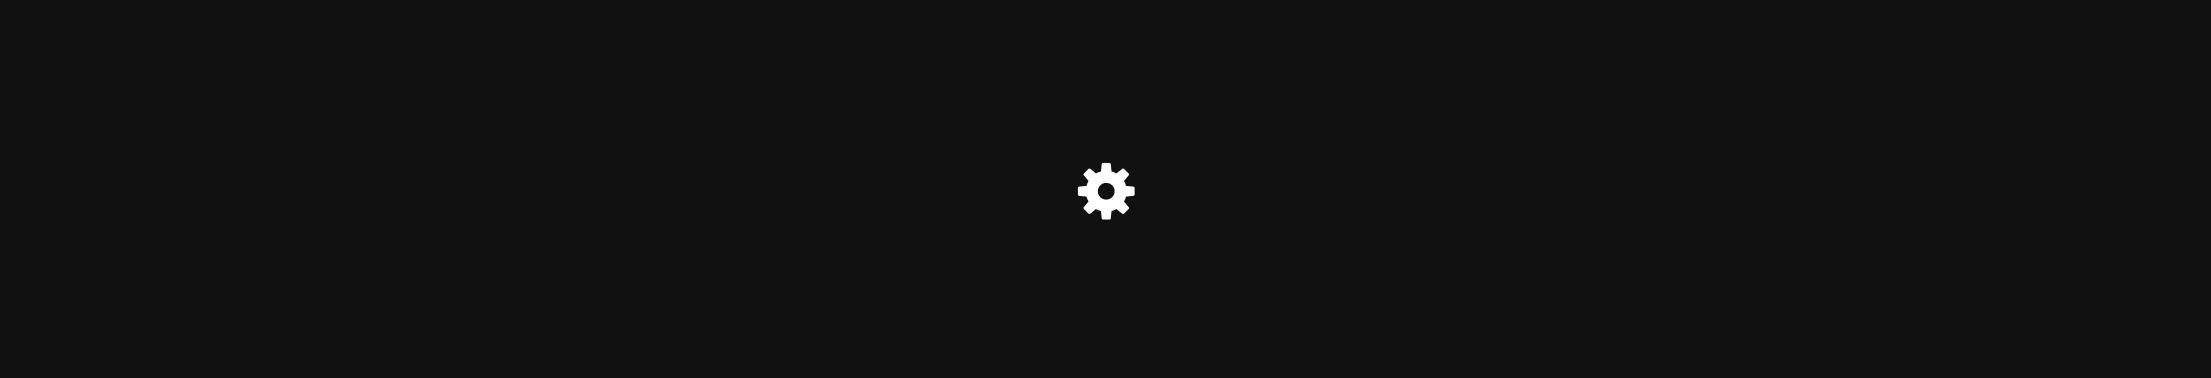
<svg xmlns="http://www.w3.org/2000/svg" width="2211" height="378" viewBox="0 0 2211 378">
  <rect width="100%" height="100%" fill="#111111"/>
  <image x="1077" y="162" width="58" height="58" href="img1.png"/>
</svg>
